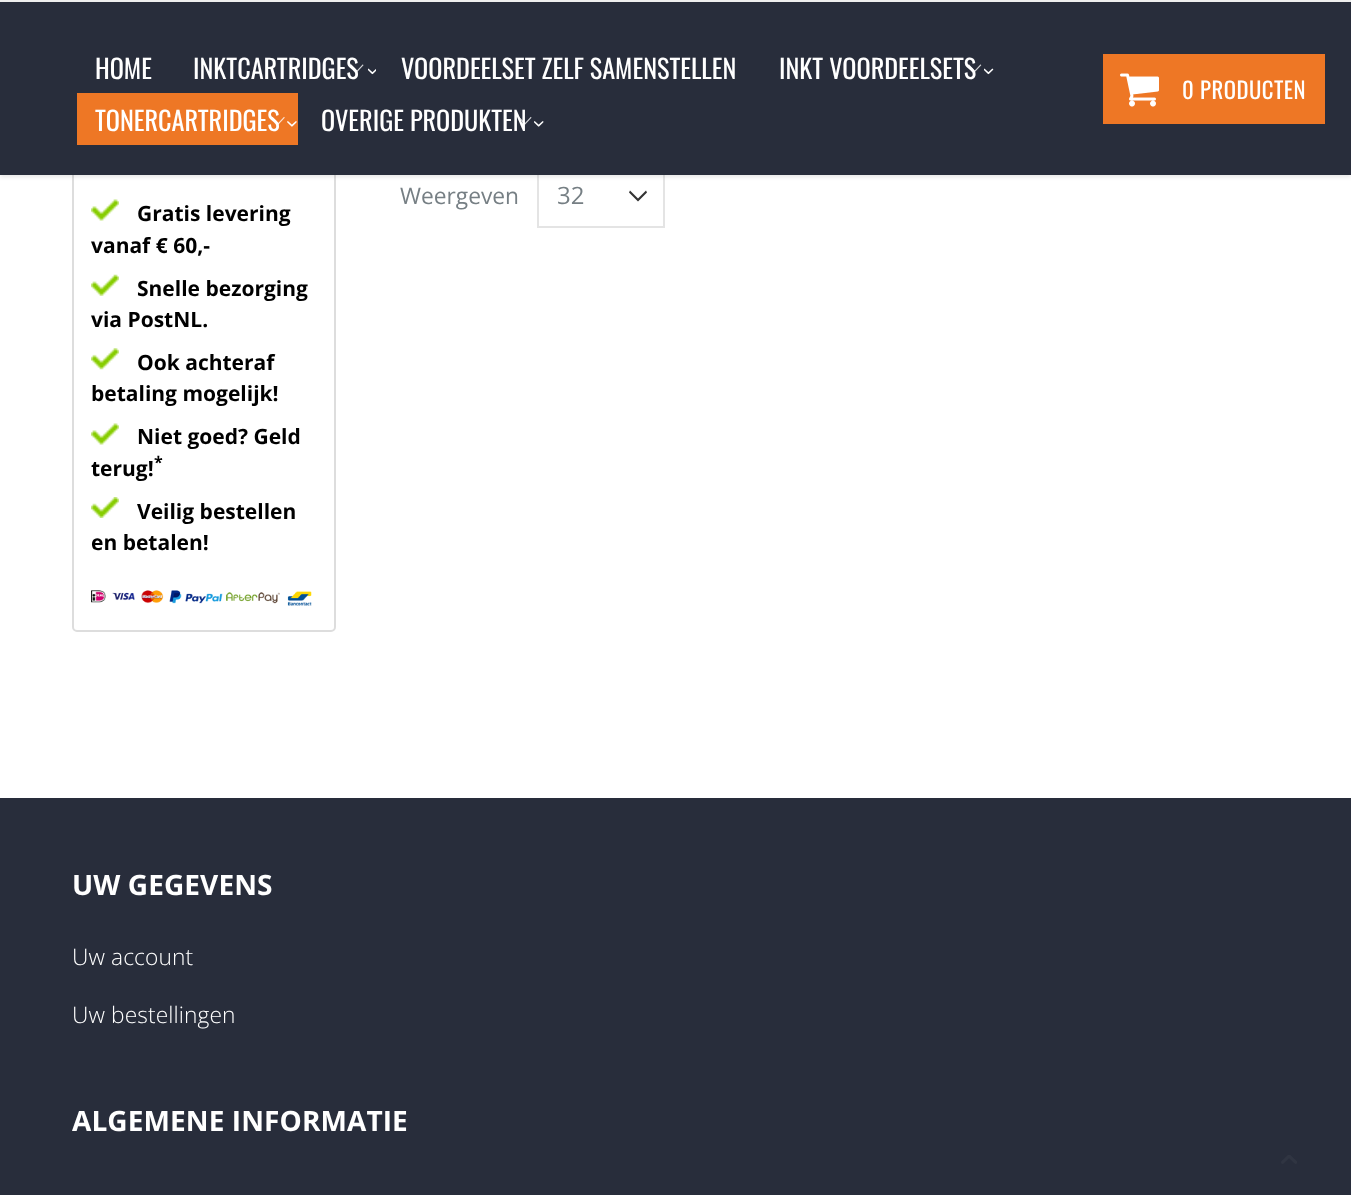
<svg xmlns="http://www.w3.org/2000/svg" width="1351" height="1195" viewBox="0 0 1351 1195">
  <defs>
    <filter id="blur1" x="-50%" y="-200%" width="200%" height="500%"><feGaussianBlur stdDeviation="2"/></filter>
  </defs>
  <rect width="100%" height="100%" fill="#ffffff"/>
  <path d="M638 201.5L647 192.5L646 190.5L638 198.5L630 190.5L629 192.5Z" fill="#333333" fill-rule="evenodd"/>
  <rect x="538" y="164" width="126" height="63" fill="none" stroke="#e4e4e4" stroke-width="2"/>
  <rect x="73" y="-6" width="262" height="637" rx="4" fill="none" stroke="#dddddd" stroke-width="2"/>
  <rect x="0" y="2" width="1351" height="175" fill="#000000" fill-opacity="0.1" filter="url(#blur1)"/>
  <rect x="0" y="2" width="1351" height="173" fill="#282d3b"/>
  <rect x="0" y="0" width="1351" height="2" fill="#eeeeee"/>
  <text x="95" y="79" font-family="Oswald" font-size="26.25" fill="#ffffff">HOME</text>
  <text x="193" y="79" font-family="Oswald" font-size="26.25" fill="#ffffff">INKTCARTRIDGES</text>
  <image x="351" y="64" width="13" height="8" href="img1.png"/>
  <image x="368" y="68" width="8" height="7" href="img2.png"/>
  <text x="401" y="79" font-family="Oswald" font-size="26.25" fill="#ffffff">VOORDEELSET ZELF SAMENSTELLEN</text>
  <text x="779" y="79" font-family="Oswald" font-size="26.25" fill="#ffffff">INKT VOORDEELSETS</text>
  <image x="968" y="64" width="14" height="8" href="img3.png"/>
  <image x="984" y="68" width="10" height="7" href="img4.png"/>
  <rect x="77" y="93" width="221" height="52" fill="#ee7725"/>
  <text x="95" y="131" font-family="Oswald" font-size="26.25" fill="#ffffff">TONERCARTRIDGES</text>
  <image x="272" y="116" width="13" height="9" href="img5.png"/>
  <image x="287" y="121" width="10" height="6" href="img6.png"/>
  <text x="321" y="131" font-family="Oswald" font-size="26.25" fill="#ffffff">OVERIGE PRODUKTEN</text>
  <image x="519" y="116" width="13" height="9" href="img7.png"/>
  <image x="534" y="121" width="10" height="6" href="img8.png"/>
  <rect x="1103" y="54" width="222" height="70" fill="#ee7725"/>
  <image x="1120" y="73" width="39" height="34" href="img9.png"/>
  <text x="1182" y="99" font-family="Oswald" font-size="22.75" letter-spacing="0.5" fill="#ffffff">0 PRODUCTEN</text>
  <text x="400" y="204" font-family="Open Sans" font-size="22.75" fill="#767f84">Weergeven</text>
  <text x="557" y="204" font-family="Open Sans" font-size="24" fill="#767f84">32</text>
  <image x="91" y="199" width="28" height="22" href="img10.png"/>
  <text x="137" y="221" font-family="Open Sans" font-size="21" font-weight="bold" fill="#000000">Gratis levering</text>
  <text x="91" y="253" font-family="Open Sans" font-size="21" font-weight="bold" fill="#000000">vanaf € 60,-</text>
  <image x="91" y="274" width="28" height="22" href="img11.png"/>
  <text x="137" y="296" font-family="Open Sans" font-size="21" font-weight="bold" fill="#000000">Snelle bezorging</text>
  <text x="91" y="327" font-family="Open Sans" font-size="21" font-weight="bold" fill="#000000">via PostNL.</text>
  <image x="91" y="348" width="28" height="22" href="img12.png"/>
  <text x="137" y="370" font-family="Open Sans" font-size="21" font-weight="bold" fill="#000000">Ook achteraf</text>
  <text x="91" y="401" font-family="Open Sans" font-size="21" font-weight="bold" fill="#000000">betaling mogelijk!</text>
  <image x="91" y="423" width="28" height="22" href="img10.png"/>
  <text x="137" y="444" font-family="Open Sans" font-size="21" font-weight="bold" fill="#000000">Niet goed? Geld</text>
  <text x="154" y="468" font-family="Open Sans" font-size="16" font-weight="bold" fill="#000000">*</text>
  <text x="91" y="476" font-family="Open Sans" font-size="21" font-weight="bold" fill="#000000">terug!</text>
  <image x="91" y="497" width="28" height="21" href="img13.png"/>
  <text x="137" y="519" font-family="Open Sans" font-size="21" font-weight="bold" fill="#000000">Veilig bestellen</text>
  <text x="91" y="550" font-family="Open Sans" font-size="21" font-weight="bold" fill="#000000">en betalen!</text>
  <image x="91" y="590" width="221" height="16" href="img14.png"/>
  <rect x="0" y="798" width="1351" height="397" fill="#282d3b"/>
  <text x="72" y="895" font-family="Open Sans" font-size="28" font-weight="bold" letter-spacing="0.1" fill="#ffffff">UW GEGEVENS</text>
  <text x="72" y="965" font-family="Open Sans" font-size="22.75" font-weight="300" letter-spacing="0.1" fill="#ffffff">Uw account</text>
  <text x="72" y="1023" font-family="Open Sans" font-size="22.75" font-weight="300" letter-spacing="0.1" fill="#ffffff">Uw bestellingen</text>
  <text x="72" y="1131" font-family="Open Sans" font-size="28" font-weight="bold" letter-spacing="0.1" fill="#ffffff">ALGEMENE INFORMATIE</text>
  <image x="1281" y="1155" width="16" height="9" href="img15.png"/>
</svg>
